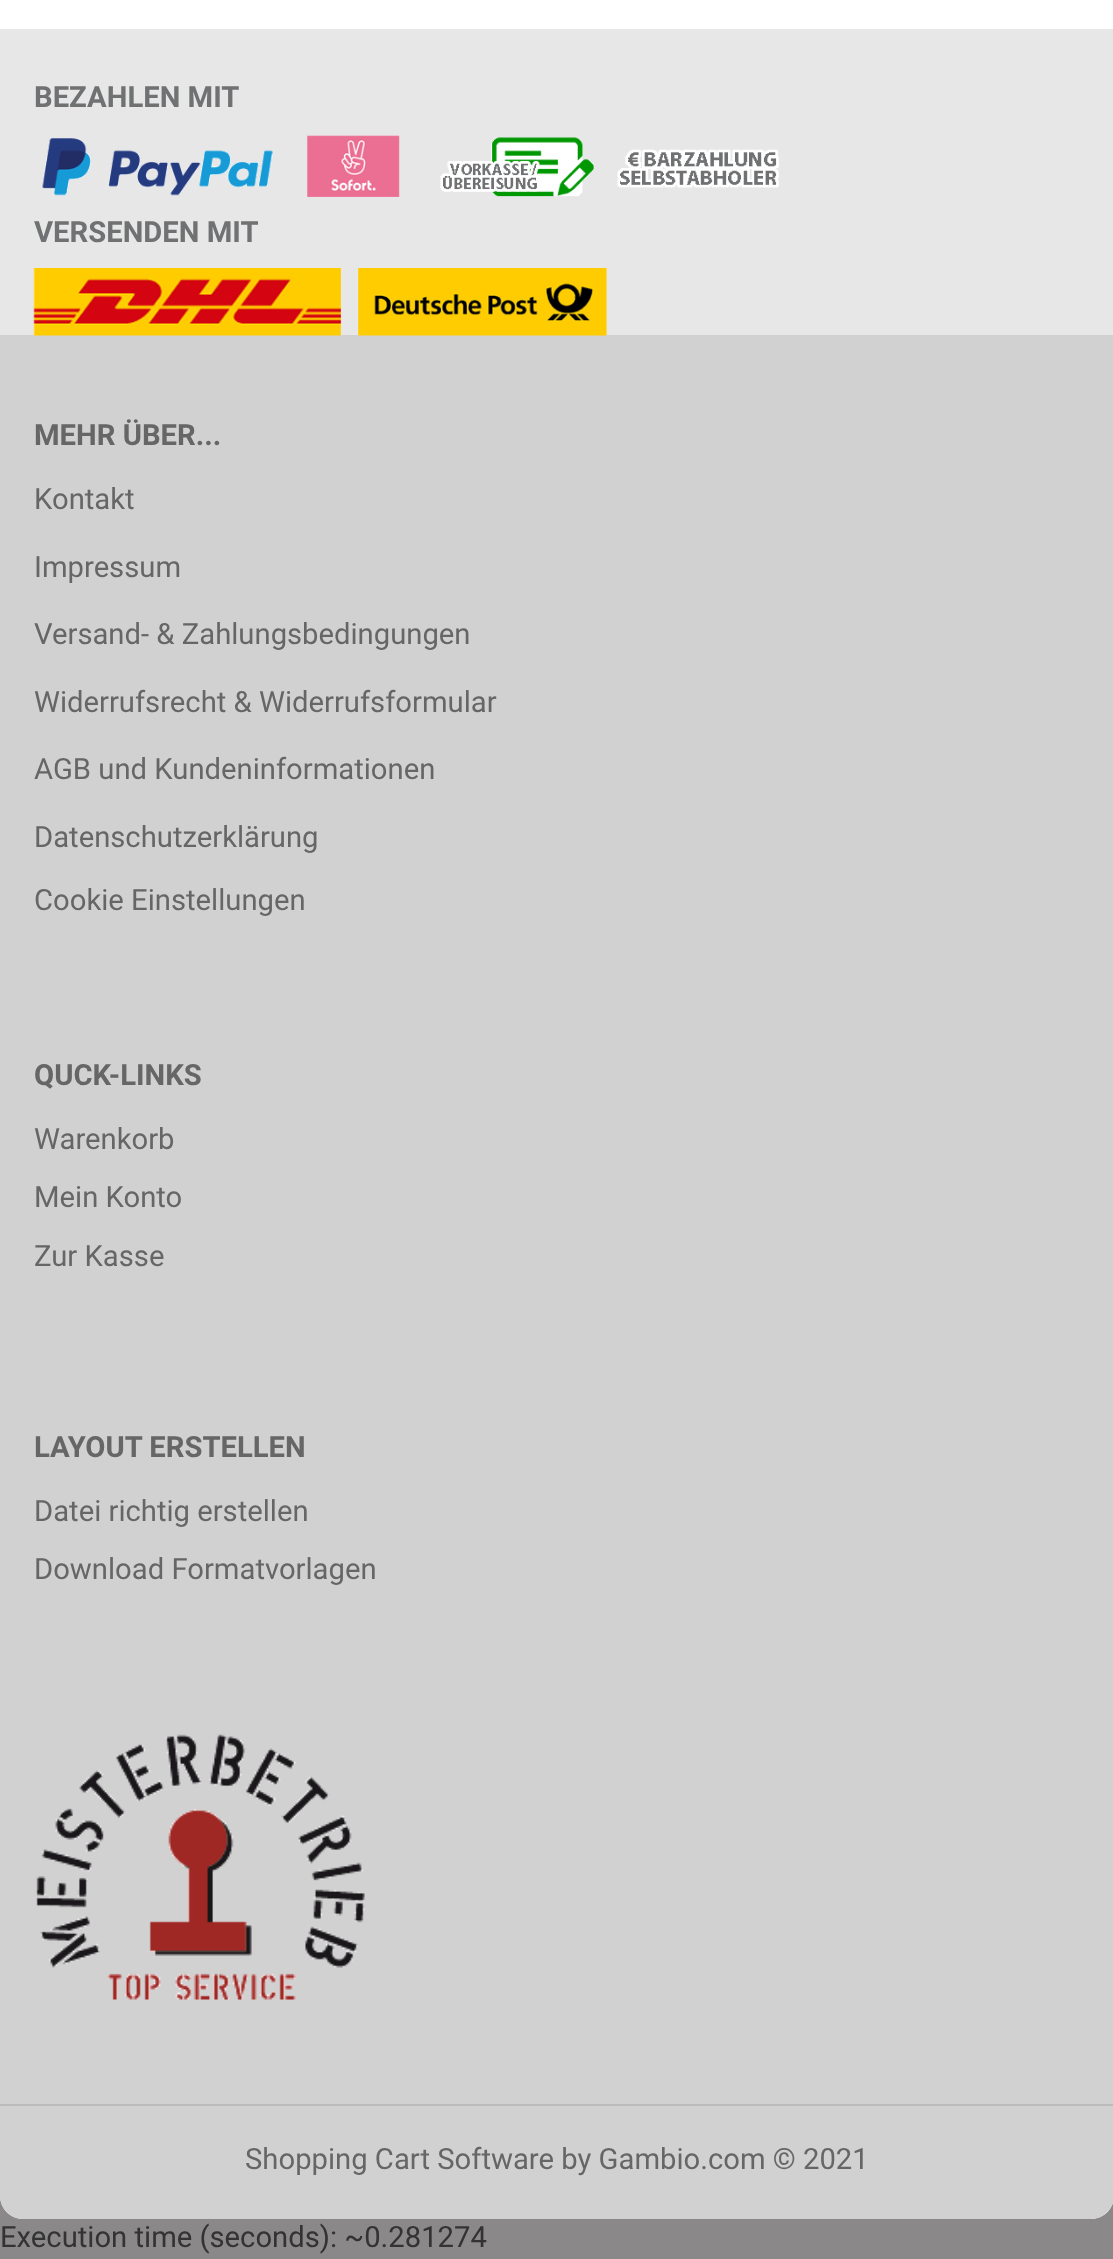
<svg xmlns="http://www.w3.org/2000/svg" width="1113" height="2259" viewBox="0 0 1113 2259">
  <rect width="100%" height="100%" fill="#8a8888"/>
  <rect x="0" y="-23" width="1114" height="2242" rx="23" fill="#ffffff"/>
  <path d="M0 29H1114V2196C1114 2208.5 1103.5 2219 1091 2219H23C10.5 2219 0 2208.5 0 2196Z" fill="#d1d1d1"/>
  <rect x="0" y="29" width="1113" height="306" fill="#e7e7e7"/>
  <text x="34" y="107" font-family="Roboto" font-size="29.25" font-weight="bold" fill="#707173">BEZAHLEN MIT</text>
  <image x="42" y="135" width="737" height="62" href="img1.png"/>
  <text x="34" y="242" font-family="Roboto" font-size="29.25" font-weight="bold" fill="#707173">VERSENDEN MIT</text>
  <image x="33" y="268" width="574" height="68" href="img2.png"/>
  <rect x="0" y="2104" width="1113" height="2" fill="#bbbbbb"/>
  <text x="34" y="445" font-family="Roboto" font-size="29.25" font-weight="bold" fill="#666666">MEHR ÜBER...</text>
  <text x="34" y="509" font-family="Roboto" font-size="29.25" fill="#666666">Kontakt</text>
  <text x="34" y="577" font-family="Roboto" font-size="29.25" fill="#666666">Impressum</text>
  <text x="34" y="644" font-family="Roboto" font-size="29.25" fill="#666666">Versand- &amp; Zahlungsbedingungen</text>
  <text x="34" y="712" font-family="Roboto" font-size="29.25" fill="#666666">Widerrufsrecht &amp; Widerrufsformular</text>
  <text x="34" y="779" font-family="Roboto" font-size="29.25" fill="#666666">AGB und Kundeninformationen</text>
  <text x="34" y="847" font-family="Roboto" font-size="29.25" fill="#666666">Datenschutzerklärung</text>
  <text x="34" y="910" font-family="Roboto" font-size="29.25" fill="#666666">Cookie Einstellungen</text>
  <text x="34" y="1085" font-family="Roboto" font-size="29.25" font-weight="bold" fill="#666666">QUCK-LINKS</text>
  <text x="34" y="1149" font-family="Roboto" font-size="29.25" fill="#666666">Warenkorb</text>
  <text x="34" y="1207" font-family="Roboto" font-size="29.25" fill="#666666">Mein Konto</text>
  <text x="34" y="1266" font-family="Roboto" font-size="29.25" fill="#666666">Zur Kasse</text>
  <text x="34" y="1457" font-family="Roboto" font-size="29.25" font-weight="bold" fill="#666666">LAYOUT ERSTELLEN</text>
  <text x="34" y="1521" font-family="Roboto" font-size="29.25" fill="#666666">Datei richtig erstellen</text>
  <text x="34" y="1579" font-family="Roboto" font-size="29.25" fill="#666666">Download Formatvorlagen</text>
  <image x="36" y="1734" width="329" height="266" href="img3.png"/>
  <text x="245" y="2169" font-family="Roboto" font-size="29.25" fill="#666666">Shopping Cart Software by Gambio.com © 2021</text>
  <text x="0" y="2247" font-family="Roboto" font-size="29.25" fill="#333333">Execution time (seconds): ~0.281274</text>
</svg>
